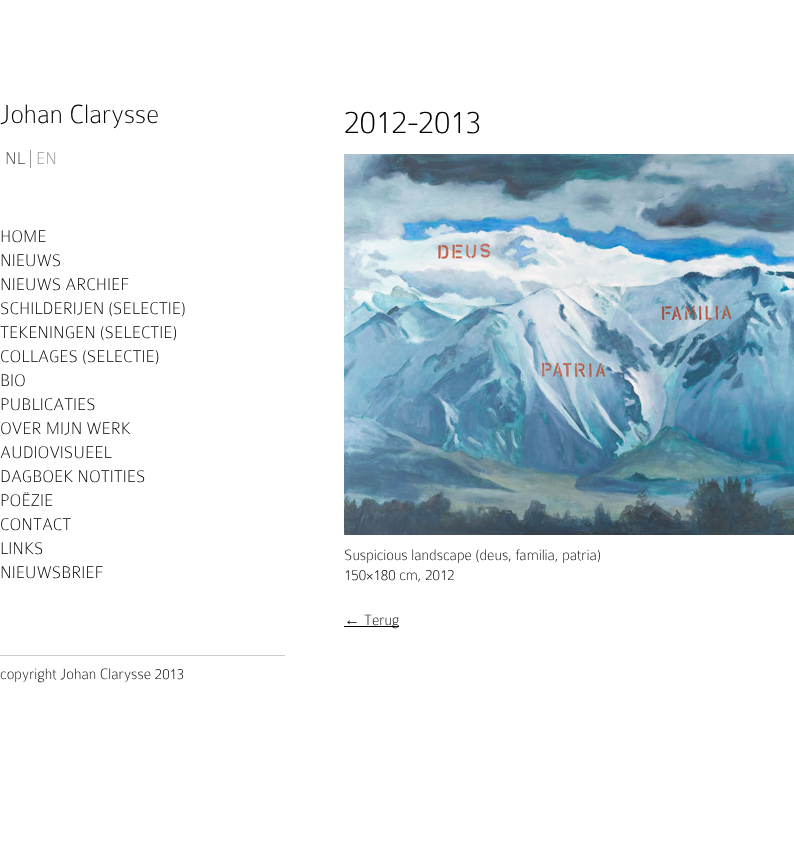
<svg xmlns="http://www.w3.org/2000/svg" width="794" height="865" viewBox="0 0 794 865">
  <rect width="100%" height="100%" fill="#ffffff"/>
  <text x="0" y="123" font-family="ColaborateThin" font-size="28" font-weight="100" fill="#000000">Johan Clarysse</text>
  <rect x="30" y="150" width="1" height="18" fill="#999999"/>
  <text x="5" y="164" font-family="ColaborateThin" font-size="18" font-weight="100" fill="#444444">NL</text>
  <text x="36" y="164" font-family="ColaborateThin" font-size="18" font-weight="100" fill="#999999">EN</text>
  <text x="0" y="242" font-family="ColaborateThin" font-size="18" font-weight="100" fill="#000000">HOME</text>
  <text x="0" y="266" font-family="ColaborateThin" font-size="18" font-weight="100" fill="#000000">NIEUWS</text>
  <text x="0" y="290" font-family="ColaborateThin" font-size="18" font-weight="100" fill="#000000">NIEUWS ARCHIEF</text>
  <text x="0" y="314" font-family="ColaborateThin" font-size="18" font-weight="100" fill="#000000">SCHILDERIJEN (SELECTIE)</text>
  <text x="0" y="338" font-family="ColaborateThin" font-size="18" font-weight="100" fill="#000000">TEKENINGEN (SELECTIE)</text>
  <text x="0" y="362" font-family="ColaborateThin" font-size="18" font-weight="100" fill="#000000">COLLAGES (SELECTIE)</text>
  <text x="0" y="386" font-family="ColaborateThin" font-size="18" font-weight="100" fill="#000000">BIO</text>
  <text x="0" y="410" font-family="ColaborateThin" font-size="18" font-weight="100" fill="#000000">PUBLICATIES</text>
  <text x="0" y="434" font-family="ColaborateThin" font-size="18" font-weight="100" fill="#000000">OVER MIJN WERK</text>
  <text x="0" y="458" font-family="ColaborateThin" font-size="18" font-weight="100" fill="#000000">AUDIOVISUEEL</text>
  <text x="0" y="482" font-family="ColaborateThin" font-size="18" font-weight="100" fill="#000000">DAGBOEK NOTITIES</text>
  <text x="0" y="506" font-family="ColaborateThin" font-size="18" font-weight="100" fill="#000000">POËZIE</text>
  <text x="0" y="530" font-family="ColaborateThin" font-size="18" font-weight="100" fill="#000000">CONTACT</text>
  <text x="0" y="554" font-family="ColaborateThin" font-size="18" font-weight="100" fill="#000000">LINKS</text>
  <text x="0" y="578" font-family="ColaborateThin" font-size="18" font-weight="100" fill="#000000">NIEUWSBRIEF</text>
  <text x="344" y="133" font-family="ColaborateThin" font-size="34.5" font-weight="100" fill="#000000">2012-2013</text>
  <image x="344" y="154" width="450" height="381" href="img1.png"/>
  <text x="344" y="560" font-family="ColaborateThin" font-size="16" font-weight="100" fill="#000000">Suspicious landscape (deus, familia, patria)</text>
  <text x="344" y="580" font-family="ColaborateThin" font-size="16" font-weight="100" fill="#000000">150×180 cm, 2012</text>
  <text x="344" y="625" font-family="Liberation Sans" font-size="16" fill="#000000">←</text>
  <rect x="344" y="626" width="55" height="1" fill="#000000"/>
  <text x="364" y="625" font-family="ColaborateThin" font-size="16" font-weight="100" fill="#000000">Terug</text>
  <rect x="0" y="655" width="285" height="1" fill="#cccccc"/>
  <text x="0" y="679" font-family="ColaborateThin" font-size="16" font-weight="100" fill="#000000">copyright Johan Clarysse 2013</text>
</svg>
